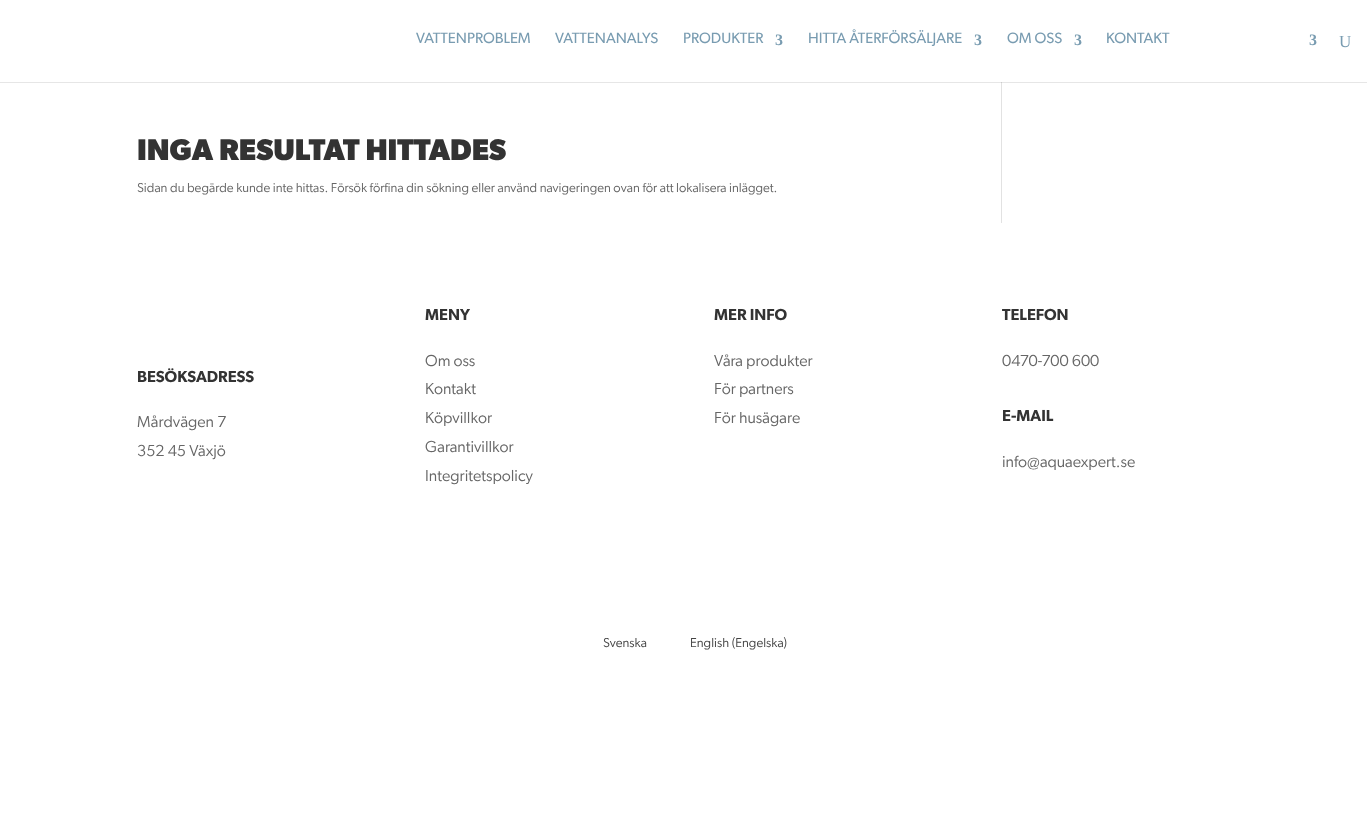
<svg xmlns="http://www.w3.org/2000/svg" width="1367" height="832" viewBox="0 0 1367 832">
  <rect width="100%" height="100%" fill="#ffffff"/>
  <rect x="0" y="82" width="1367" height="1" fill="#e6e6e6"/>
  <rect x="1001" y="80" width="1" height="143" fill="#e2e2e2"/>
  <rect x="1001" y="80" width="1" height="2" fill="#ffffff"/>
  <text x="416" y="43" font-family="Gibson" font-size="15" fill="#799cb1">VATTENPROBLEM</text>
  <text x="555" y="43" font-family="Gibson" font-size="15" fill="#799cb1">VATTENANALYS</text>
  <text x="683" y="43" font-family="Gibson" font-size="15" fill="#799cb1">PRODUKTER</text>
  <text x="775" y="45" font-family="Liberation Serif" font-size="16" font-weight="bold" fill="#799cb1">3</text>
  <text x="808" y="43" font-family="Gibson" font-size="15" fill="#799cb1">HITTA ÅTERFÖRSÄLJARE</text>
  <text x="974" y="45" font-family="Liberation Serif" font-size="16" font-weight="bold" fill="#799cb1">3</text>
  <text x="1007" y="43" font-family="Gibson" font-size="15" fill="#799cb1">OM OSS</text>
  <text x="1074" y="45" font-family="Liberation Serif" font-size="16" font-weight="bold" fill="#799cb1">3</text>
  <text x="1106" y="43" font-family="Gibson" font-size="15" fill="#799cb1">KONTAKT</text>
  <text x="1309" y="45" font-family="Liberation Serif" font-size="16" font-weight="bold" fill="#799cb1">3</text>
  <text x="1339" y="47" font-family="Liberation Serif" font-size="17" fill="#799cb1">U</text>
  <text x="137" y="160" font-family="Gibson" font-size="30" font-weight="bold" fill="#333333">INGA RESULTAT HITTADES</text>
  <text x="137" y="192" font-family="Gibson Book" font-size="13" fill="#666666">Sidan du begärde kunde inte hittas. Försök förfina din sökning eller använd navigeringen ovan för att lokalisera inlägget.</text>
  <rect x="1001" y="82" width="1" height="1" fill="#cbcbcb"/>
  <text x="137" y="382" font-family="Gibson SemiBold" font-size="16" font-weight="600" fill="#333333">BESÖKSADRESS</text>
  <text x="137" y="427" font-family="Gibson Book" font-size="16" fill="#666666">Mårdvägen 7</text>
  <text x="137" y="456" font-family="Gibson Book" font-size="16" fill="#666666">352 45 Växjö</text>
  <text x="425" y="320" font-family="Gibson SemiBold" font-size="16" font-weight="600" fill="#333333">MENY</text>
  <text x="425" y="366" font-family="Gibson Book" font-size="16" fill="#666666">Om oss</text>
  <text x="425" y="394" font-family="Gibson Book" font-size="16" fill="#666666">Kontakt</text>
  <text x="425" y="423" font-family="Gibson Book" font-size="16" fill="#666666">Köpvillkor</text>
  <text x="425" y="452" font-family="Gibson Book" font-size="16" fill="#666666">Garantivillkor</text>
  <text x="425" y="481" font-family="Gibson Book" font-size="16" fill="#666666">Integritetspolicy</text>
  <text x="714" y="320" font-family="Gibson SemiBold" font-size="16" font-weight="600" fill="#333333">MER INFO</text>
  <text x="714" y="366" font-family="Gibson Book" font-size="16" fill="#666666">Våra produkter</text>
  <text x="714" y="394" font-family="Gibson Book" font-size="16" fill="#666666">För partners</text>
  <text x="714" y="423" font-family="Gibson Book" font-size="16" fill="#666666">För husägare</text>
  <text x="1002" y="320" font-family="Gibson SemiBold" font-size="16" font-weight="600" fill="#333333">TELEFON</text>
  <text x="1002" y="366" font-family="Gibson Book" font-size="16" fill="#666666">0470-700 600</text>
  <text x="1002" y="421" font-family="Gibson SemiBold" font-size="16" font-weight="600" fill="#333333">E-MAIL</text>
  <text x="1002" y="467" font-family="Gibson Book" font-size="16" fill="#666666">info@aquaexpert.se</text>
  <text x="603" y="647" font-family="Gibson Book" font-size="13" fill="#444444">Svenska</text>
  <text x="690" y="647" font-family="Gibson Book" font-size="13" fill="#444444">English (Engelska)</text>
</svg>
